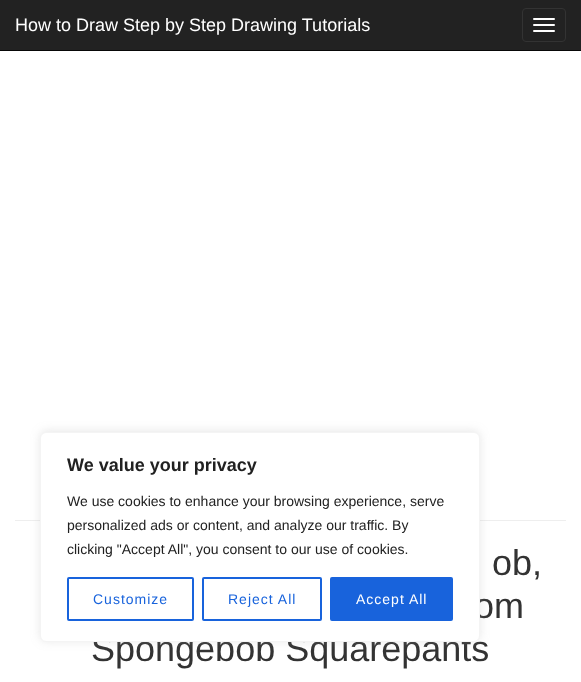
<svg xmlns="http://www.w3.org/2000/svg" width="581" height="682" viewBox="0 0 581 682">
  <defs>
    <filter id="blur1" x="-50%" y="-200%" width="200%" height="500%"><feGaussianBlur stdDeviation="5"/></filter>
  </defs>
  <rect width="100%" height="100%" fill="#ffffff"/>
  <rect x="0" y="0" width="581" height="50" fill="#222222"/>
  <rect x="0" y="50" width="581" height="1" fill="#080808"/>
  <text x="15" y="31" font-family="Liberation Sans" font-size="18" fill="#ffffff">How to Draw Step by Step Drawing Tutorials</text>
  <rect x="522.5" y="8.5" width="43" height="33" rx="3.5" fill="none" stroke="#333333"/>
  <rect x="533" y="18" width="22" height="2" rx="1" fill="#ffffff"/>
  <rect x="533" y="24" width="22" height="2" rx="1" fill="#ffffff"/>
  <rect x="533" y="30" width="22" height="2" rx="1" fill="#ffffff"/>
  <rect x="15" y="520" width="551" height="1" fill="#eeeeee"/>
  <text x="492" y="575" font-family="Liberation Sans" font-size="36" fill="#333333">ob,</text>
  <text x="474" y="618" font-family="Liberation Sans" font-size="36" fill="#333333">om</text>
  <text x="91" y="661" font-family="Liberation Sans" font-size="36" fill="#333333">Spongebob Squarepants</text>
  <rect x="40" y="431" width="440" height="210" rx="6" fill="#acabab" fill-opacity="0.3" filter="url(#blur1)"/>
  <rect x="40.5" y="432.5" width="439" height="209" rx="5.5" fill="#ffffff" stroke="#f4f4f4"/>
  <text x="67" y="471" font-family="Liberation Sans" font-size="18" font-weight="bold" fill="#212121">We value your privacy</text>
  <text x="67" y="506" font-family="Liberation Sans" font-size="14" fill="#212121">We use cookies to enhance your browsing experience, serve</text>
  <text x="67" y="530" font-family="Liberation Sans" font-size="14" fill="#212121">personalized ads or content, and analyze our traffic. By</text>
  <text x="67" y="554" font-family="Liberation Sans" font-size="14" fill="#212121">clicking "Accept All", you consent to our use of cookies.</text>
  <rect x="68" y="578" width="125" height="42" rx="1" fill="none" stroke="#1863dc" stroke-width="2"/>
  <text x="93" y="604" font-family="Liberation Sans" font-size="14" letter-spacing="1" fill="#1863dc">Customize</text>
  <rect x="203" y="578" width="118" height="42" rx="1" fill="none" stroke="#1863dc" stroke-width="2"/>
  <text x="228" y="604" font-family="Liberation Sans" font-size="14" letter-spacing="1" fill="#1863dc">Reject All</text>
  <rect x="331" y="578" width="121" height="42" rx="1" fill="#1863dc" stroke="#1863dc" stroke-width="2"/>
  <text x="356" y="604" font-family="Liberation Sans" font-size="14" letter-spacing="1" fill="#ffffff">Accept All</text>
</svg>
